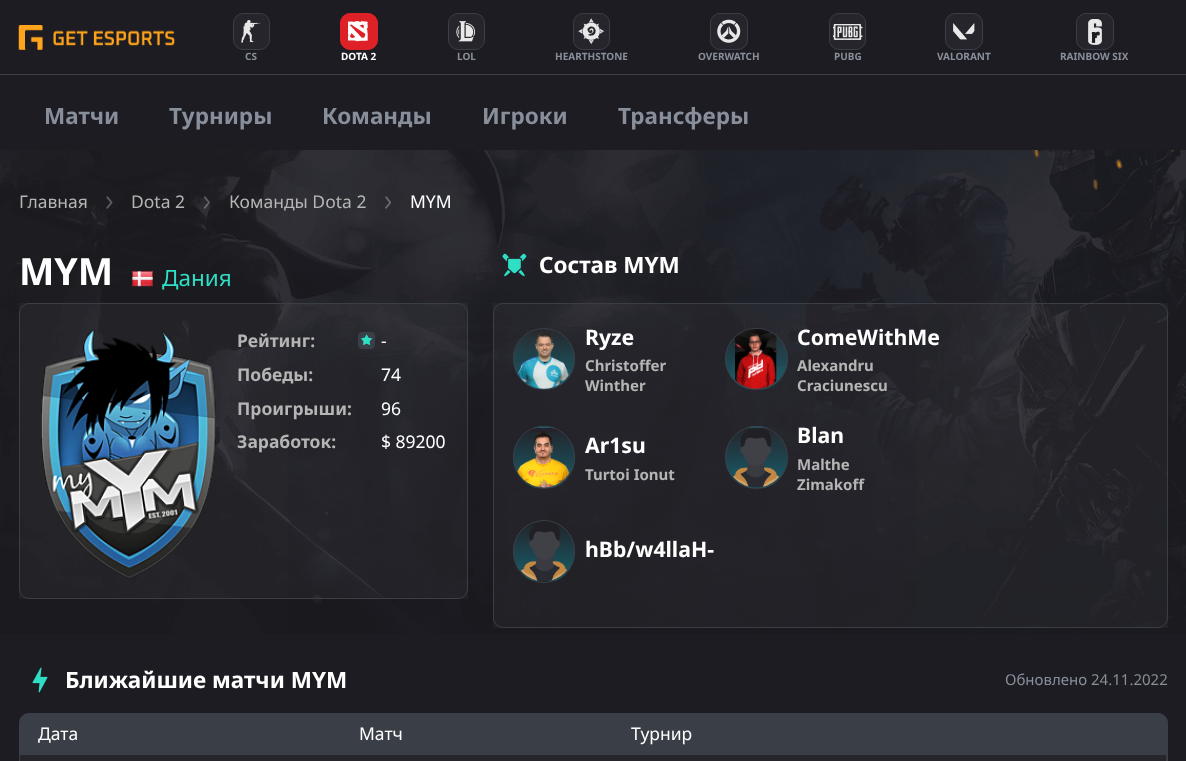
<svg xmlns="http://www.w3.org/2000/svg" width="1186" height="761" viewBox="0 0 1186 761">
  <defs>
    <clipPath id="clip1"><rect x="513" y="328" width="62" height="62" rx="31"/></clipPath>
    <linearGradient id="g1" gradientUnits="userSpaceOnUse" x1="544" y1="397" x2="544" y2="329"><stop offset="0" stop-color="#00daf8" stop-opacity="0.38"/><stop offset="1" stop-color="#00daf8" stop-opacity="0"/></linearGradient>
    <clipPath id="clip2"><rect x="725" y="328" width="63" height="62" rx="31"/></clipPath>
    <linearGradient id="g2" gradientUnits="userSpaceOnUse" x1="756" y1="397" x2="756" y2="329"><stop offset="0" stop-color="#00daf8" stop-opacity="0.38"/><stop offset="1" stop-color="#00daf8" stop-opacity="0"/></linearGradient>
    <clipPath id="clip3"><rect x="513" y="426" width="62" height="63" rx="31"/></clipPath>
    <linearGradient id="g3" gradientUnits="userSpaceOnUse" x1="544" y1="436" x2="544" y2="368"><stop offset="0" stop-color="#176a79"/><stop offset="1" stop-color="#25252b"/></linearGradient>
    <linearGradient id="g4" gradientUnits="userSpaceOnUse" x1="544" y1="496" x2="544" y2="428"><stop offset="0" stop-color="#00daf8" stop-opacity="0.38"/><stop offset="1" stop-color="#00daf8" stop-opacity="0"/></linearGradient>
    <clipPath id="clip4"><rect x="725" y="426" width="63" height="63" rx="31.5"/></clipPath>
    <linearGradient id="g5" gradientUnits="userSpaceOnUse" x1="756" y1="436" x2="756" y2="368"><stop offset="0" stop-color="#186c7a"/><stop offset="1" stop-color="#27282d"/></linearGradient>
    <linearGradient id="g6" gradientUnits="userSpaceOnUse" x1="756" y1="496" x2="756" y2="428"><stop offset="0" stop-color="#00daf8" stop-opacity="0.38"/><stop offset="1" stop-color="#00daf8" stop-opacity="0"/></linearGradient>
    <clipPath id="clip5"><rect x="513" y="520" width="62" height="63" rx="31"/></clipPath>
    <linearGradient id="g7" gradientUnits="userSpaceOnUse" x1="544" y1="590" x2="544" y2="521"><stop offset="0" stop-color="#00daf8" stop-opacity="0.38"/><stop offset="1" stop-color="#00daf8" stop-opacity="0"/></linearGradient>
  </defs>
  <rect width="100%" height="100%" fill="#1c1c22"/>
  <image x="0" y="150" width="1186" height="484" href="img1.png"/>
  <image x="18" y="25" width="157" height="25" href="img2.png"/>
  <rect x="340.5" y="13.5" width="37" height="36" rx="9.5" fill="#de2127" stroke="#de2127"/>
  <image x="348" y="21" width="20" height="21" href="img3.png"/>
  <text x="341" y="60" font-family="Noto Sans" font-size="10" font-weight="bold" fill="#ffffff">DOTA 2</text>
  <text x="44" y="124" font-family="Noto Sans" font-size="22.5" font-weight="bold" fill="#888f9a">Матчи</text>
  <text x="169" y="124" font-family="Noto Sans" font-size="22.5" font-weight="bold" fill="#888f9a">Турниры</text>
  <text x="322" y="124" font-family="Noto Sans" font-size="22.5" font-weight="bold" fill="#888f9a">Команды</text>
  <text x="482" y="124" font-family="Noto Sans" font-size="22.5" font-weight="bold" fill="#888f9a">Игроки</text>
  <text x="618" y="124" font-family="Noto Sans" font-size="22.5" font-weight="bold" fill="#888f9a">Трансферы</text>
  <rect x="233.5" y="13.5" width="36" height="36" rx="9.5" fill="#25252b" stroke="#3a3f47"/>
  <image x="241" y="20" width="19" height="23" href="img4.png"/>
  <text x="245" y="60" font-family="Noto Sans" font-size="10" font-weight="bold" fill="#888f9a">CS</text>
  <rect x="448.5" y="13.5" width="36" height="36" rx="9.5" fill="#25252b" stroke="#3a3f47"/>
  <image x="456" y="21" width="20" height="21" href="img5.png"/>
  <text x="457" y="60" font-family="Noto Sans" font-size="10" font-weight="bold" fill="#888f9a">LOL</text>
  <rect x="573.5" y="13.5" width="36" height="36" rx="9.5" fill="#25252b" stroke="#3a3f47"/>
  <image x="578" y="18" width="27" height="27" href="img6.png"/>
  <text x="555" y="60" font-family="Noto Sans" font-size="10" font-weight="bold" fill="#888f9a">HEARTHSTONE</text>
  <rect x="710.5" y="13.5" width="37" height="36" rx="9.5" fill="#25252b" stroke="#3a3f47"/>
  <image x="717" y="19" width="24" height="24" href="img7.png"/>
  <text x="698" y="60" font-family="Noto Sans" font-size="10" font-weight="bold" fill="#888f9a">OVERWATCH</text>
  <rect x="829.5" y="13.5" width="36" height="36" rx="9.5" fill="#25252b" stroke="#3a3f47"/>
  <image x="833" y="24" width="30" height="16" href="img8.png"/>
  <text x="834" y="60" font-family="Noto Sans" font-size="10" font-weight="bold" fill="#888f9a">PUBG</text>
  <rect x="945.5" y="13.5" width="37" height="36" rx="9.5" fill="#25252b" stroke="#3a3f47"/>
  <image x="953" y="23" width="22" height="17" href="img9.png"/>
  <text x="937" y="60" font-family="Noto Sans" font-size="10" font-weight="bold" fill="#888f9a">VALORANT</text>
  <rect x="1076.5" y="13.5" width="37" height="36" rx="9.5" fill="#25252b" stroke="#3a3f47"/>
  <image x="1088" y="19" width="14" height="26" href="img10.png"/>
  <text x="1060" y="60" font-family="Noto Sans" font-size="10" font-weight="bold" fill="#888f9a">RAINBOW SIX</text>
  <rect x="0" y="74" width="1186" height="1" fill="#3a3f47"/>
  <text x="19" y="208" font-family="Noto Sans" font-size="17.5" fill="#b5b5b5">Главная</text>
  <image x="106" y="196" width="7" height="13" href="img11.png"/>
  <text x="131" y="208" font-family="Noto Sans" font-size="17.5" fill="#b5b5b5">Dota 2</text>
  <image x="204" y="196" width="6" height="13" href="img12.png"/>
  <text x="229" y="208" font-family="Noto Sans" font-size="17.5" fill="#b5b5b5">Команды Dota 2</text>
  <image x="385" y="196" width="6" height="13" href="img13.png"/>
  <text x="410" y="208" font-family="Noto Sans" font-size="17.5" fill="#ffffff">MYM</text>
  <text x="19" y="285" font-family="Noto Sans" font-size="37.5" font-weight="bold" fill="#ffffff">MYM</text>
  <image x="132" y="271" width="21" height="16" href="img14.png"/>
  <text x="162" y="286" font-family="Noto Sans" font-size="22.5" fill="#2fdfc5">Дания</text>
  <rect x="19" y="303" width="449" height="296" fill="#ffffff" fill-opacity="0.04"/>
  <rect x="19.5" y="303.5" width="448" height="295" rx="9.5" fill="none" stroke="#3a3f47"/>
  <image x="41" y="329" width="175" height="250" href="img15.png"/>
  <text x="237" y="347" font-family="Noto Sans" font-size="17.5" font-weight="bold" fill="#b5b5b5">Рейтинг:</text>
  <image x="358" y="332" width="17" height="17" href="img16.png"/>
  <text x="381" y="347" font-family="Noto Sans" font-size="17.5" fill="#ffffff">-</text>
  <text x="237" y="381" font-family="Noto Sans" font-size="17.5" font-weight="bold" fill="#b5b5b5">Победы:</text>
  <text x="381" y="381" font-family="Noto Sans" font-size="17.5" fill="#ffffff">74</text>
  <text x="237" y="415" font-family="Noto Sans" font-size="17.5" font-weight="bold" fill="#b5b5b5">Проигрыши:</text>
  <text x="381" y="415" font-family="Noto Sans" font-size="17.5" fill="#ffffff">96</text>
  <text x="237" y="448" font-family="Noto Sans" font-size="17.5" font-weight="bold" fill="#b5b5b5">Заработок:</text>
  <text x="381" y="448" font-family="Noto Sans" font-size="17.5" fill="#ffffff">$ 89200</text>
  <image x="502" y="253" width="25" height="24" href="img17.png"/>
  <text x="539" y="273" font-family="Noto Sans" font-size="22.5" font-weight="bold" fill="#ffffff">Состав MYM</text>
  <rect x="493" y="303" width="675" height="325" fill="#ffffff" fill-opacity="0.04"/>
  <rect x="493.5" y="303.5" width="674" height="324" rx="9.5" fill="none" stroke="#3a3f47"/>
  <g clip-path="url(#clip1)">
    <rect x="513" y="333" width="62" height="56" fill="url(#g1)"/>
  </g>
  <circle cx="544" cy="359" r="30.5" fill="none" stroke="#3a3f47"/>
  <image x="518" y="332" width="51" height="57" href="img18.png"/>
  <text x="585" y="345" font-family="Noto Sans" font-size="21.25" font-weight="bold" fill="#ffffff">Ryze</text>
  <text x="585" y="371" font-family="Noto Sans" font-size="15" font-weight="bold" fill="#b5b5b5">Christoffer</text>
  <text x="585" y="391" font-family="Noto Sans" font-size="15" font-weight="bold" fill="#b5b5b5">Winther</text>
  <g clip-path="url(#clip2)">
    <rect x="725" y="333" width="63" height="56" fill="url(#g2)"/>
  </g>
  <rect x="725.5" y="328.5" width="62" height="61" rx="30.5" fill="none" stroke="#3a3f47"/>
  <image x="735" y="329" width="42" height="60" href="img19.png"/>
  <text x="797" y="345" font-family="Noto Sans" font-size="21.25" font-weight="bold" fill="#ffffff">ComeWithMe</text>
  <text x="797" y="371" font-family="Noto Sans" font-size="15" font-weight="bold" fill="#b5b5b5">Alexandru</text>
  <text x="797" y="391" font-family="Noto Sans" font-size="15" font-weight="bold" fill="#b5b5b5">Craciunescu</text>
  <g clip-path="url(#clip3)">
    <rect x="533" y="426" width="22" height="2" fill="url(#g3)"/>
    <rect x="513" y="432" width="62" height="56" fill="url(#g4)"/>
  </g>
  <rect x="513.5" y="426.5" width="61" height="62" rx="30.5" fill="none" stroke="#3a3f47"/>
  <image x="517" y="431" width="53" height="57" href="img20.png"/>
  <text x="585" y="453" font-family="Noto Sans" font-size="21.25" font-weight="bold" fill="#ffffff">Ar1su</text>
  <text x="585" y="480" font-family="Noto Sans" font-size="15" font-weight="bold" fill="#b5b5b5">Turtoi Ionut</text>
  <g clip-path="url(#clip4)">
    <rect x="745" y="426" width="23" height="2" fill="url(#g5)"/>
    <rect x="725" y="432" width="63" height="56" fill="url(#g6)"/>
  </g>
  <circle cx="756.5" cy="457.5" r="31" fill="none" stroke="#3a3f47"/>
  <image x="733" y="427" width="47" height="61" href="img21.png"/>
  <text x="797" y="443" font-family="Noto Sans" font-size="21.25" font-weight="bold" fill="#ffffff">Blan</text>
  <text x="797" y="470" font-family="Noto Sans" font-size="15" font-weight="bold" fill="#b5b5b5">Malthe</text>
  <text x="797" y="490" font-family="Noto Sans" font-size="15" font-weight="bold" fill="#b5b5b5">Zimakoff</text>
  <g clip-path="url(#clip5)">
    <rect x="513" y="525" width="62" height="56" fill="url(#g7)"/>
  </g>
  <rect x="513.5" y="520.5" width="61" height="62" rx="30.5" fill="none" stroke="#3a3f47"/>
  <image x="520" y="521" width="47" height="60" href="img22.png"/>
  <text x="585" y="557" font-family="Noto Sans" font-size="21.25" font-weight="bold" fill="#ffffff">hBb/w4llaH-</text>
  <image x="32" y="667" width="16" height="26" href="img23.png"/>
  <text x="65" y="688" font-family="Noto Sans" font-size="22.5" font-weight="bold" fill="#ffffff">Ближайшие матчи MYM</text>
  <text x="1005" y="685" font-family="Noto Sans" font-size="15" fill="#888f9a">Обновлено 24.11.2022</text>
  <path d="M29 713H1158C1163.5 713 1168 717.5 1168 723V755H19V723C19 717.5 23.5 713 29 713Z" fill="#3a3f47"/>
  <text x="38" y="740" font-family="Noto Sans" font-size="17.5" fill="#ffffff">Дата</text>
  <text x="359" y="740" font-family="Noto Sans" font-size="17.5" fill="#ffffff">Матч</text>
  <text x="631" y="740" font-family="Noto Sans" font-size="17.5" fill="#ffffff">Турнир</text>
  <rect x="20" y="755" width="1146" height="6" fill="#25252b"/>
  <path d="M19 755H1168V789C1168 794 1163 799 1158 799H29C23 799 19 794 19 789ZM20 755H1166V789C1166 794 1162 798 1158 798H29C24 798 20 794 20 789Z" fill="#3a3f47" fill-rule="evenodd"/>
</svg>
